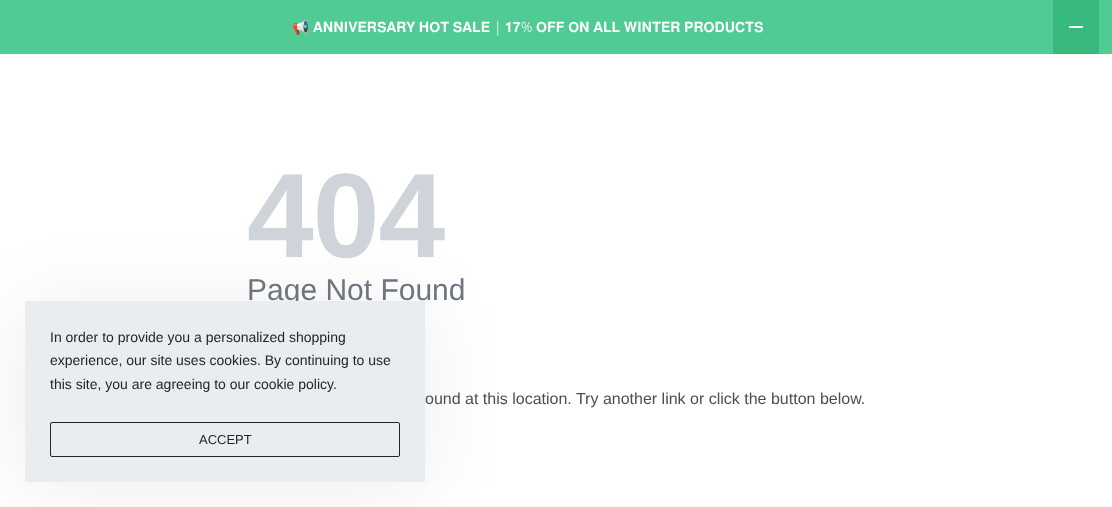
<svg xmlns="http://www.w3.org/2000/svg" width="1112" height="507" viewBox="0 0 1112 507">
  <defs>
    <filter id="blur1" x="-50%" y="-200%" width="200%" height="500%"><feGaussianBlur stdDeviation="40"/></filter>
  </defs>
  <rect width="100%" height="100%" fill="#ffffff"/>
  <rect x="0" y="0" width="1112" height="54" fill="#51cb94"/>
  <text x="292" y="32" font-family="Noto Color Emoji" font-size="14" fill="#ffffff">📢</text>
  <text x="313" y="32" font-family="FreeSans" font-size="14" fill="#ffffff">𝐀𝐍𝐍𝐈𝐕𝐄𝐑𝐒𝐀𝐑𝐘 𝐇𝐎𝐓 𝐒𝐀𝐋𝐄</text>
  <text x="494" y="32" font-family="Noto Sans" font-size="14" font-weight="300" fill="#ffffff">|</text>
  <text x="505" y="32" font-family="FreeSans" font-size="14" fill="#ffffff">𝟏𝟕</text>
  <text x="521" y="32" font-family="Noto Sans" font-size="14" font-weight="300" fill="#ffffff">%</text>
  <text x="536" y="32" font-family="FreeSans" font-size="14" fill="#ffffff">𝐎𝐅𝐅 𝐎𝐍 𝐀𝐋𝐋 𝐖𝐈𝐍𝐓𝐄𝐑 𝐏𝐑𝐎𝐃𝐔𝐂𝐓𝐒</text>
  <rect x="1053" y="0" width="46" height="54" fill="#38ba7f"/>
  <rect x="1069" y="26" width="14" height="2" fill="#ffffff"/>
  <rect x="25" y="306" width="400" height="181" fill="#000000" fill-opacity="0.07" filter="url(#blur1)"/>
  <text x="247" y="300" font-family="Liberation Sans" font-size="30" fill="#6d757e">Page Not Found</text>
  <rect x="25" y="301" width="400" height="181" fill="#eaedf0"/>
  <text x="50" y="342" font-family="Liberation Sans" font-size="14" fill="#22262a">In order to provide you a personalized shopping</text>
  <text x="50" y="365" font-family="Liberation Sans" font-size="14" fill="#22262a">experience, our site uses cookies. By continuing to use</text>
  <text x="50" y="389" font-family="Liberation Sans" font-size="14" fill="#22262a">this site, you are agreeing to our cookie policy.</text>
  <rect x="50.5" y="422.5" width="349" height="34" rx="1.5" fill="none" stroke="#22262a"/>
  <text x="199" y="444" font-family="Liberation Sans" font-size="13" fill="#22262a">ACCEPT</text>
  <text x="247" y="257" font-family="Liberation Sans" font-size="120" font-weight="bold" letter-spacing="-1" fill="#ced4da">404</text>
  <text x="425" y="404" font-family="Liberation Sans" font-size="16" fill="#484f56">ound at this location. Try another link or click the button below.</text>
</svg>
